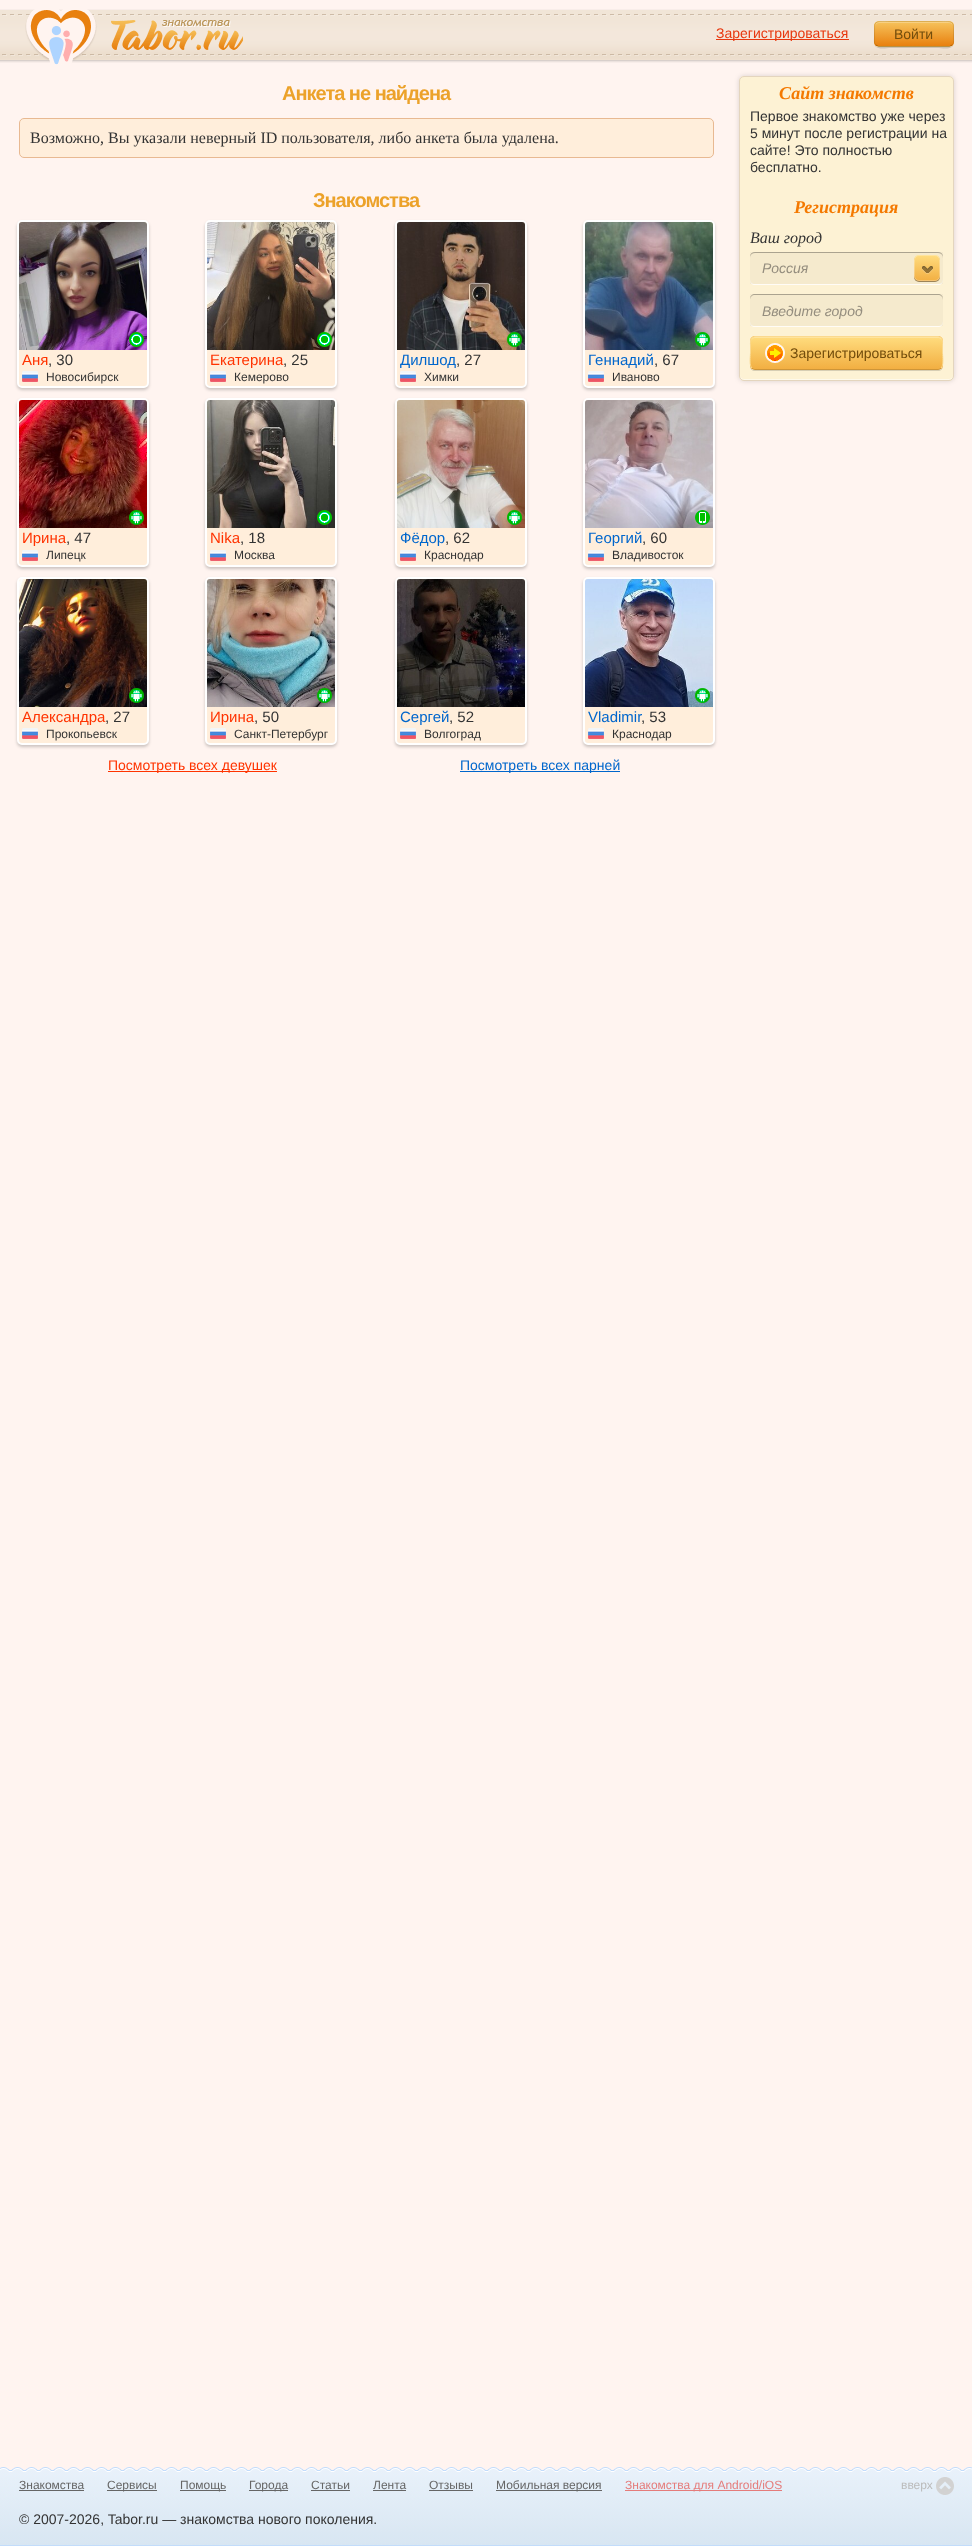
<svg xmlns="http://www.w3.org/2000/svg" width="972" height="2546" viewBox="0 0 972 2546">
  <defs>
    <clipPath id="clip1"><rect x="874" y="21" width="80" height="26" rx="5"/></clipPath>
    <linearGradient id="g1" gradientUnits="userSpaceOnUse" x1="914" y1="22" x2="914" y2="46"><stop offset="0" stop-color="#f6c25b"/><stop offset="1" stop-color="#e8800f"/></linearGradient>
    <filter id="blur1" x="-50%" y="-200%" width="200%" height="500%"><feGaussianBlur stdDeviation="1.5"/></filter>
    <filter id="blur2" x="-50%" y="-200%" width="200%" height="500%"><feGaussianBlur stdDeviation="2.5"/></filter>
    <filter id="blur3" x="-50%" y="-200%" width="200%" height="500%"><feGaussianBlur stdDeviation="0.5"/></filter>
    <linearGradient id="g2" gradientUnits="userSpaceOnUse" x1="927" y1="255" x2="927" y2="281"><stop offset="0" stop-color="#ffdc7e"/><stop offset="1" stop-color="#f2af42"/></linearGradient>
    <clipPath id="clip2"><rect x="750" y="336" width="193" height="34" rx="5"/></clipPath>
    <linearGradient id="g3" gradientUnits="userSpaceOnUse" x1="847" y1="337" x2="847" y2="369"><stop offset="0" stop-color="#ffdc7e"/><stop offset="1" stop-color="#f2af42"/></linearGradient>
    <linearGradient id="g4" gradientUnits="userSpaceOnUse" x1="486" y1="2470" x2="486" y2="2545"><stop offset="0" stop-color="#e8f1fa"/><stop offset="1" stop-color="#d8e6f2"/></linearGradient>
  </defs>
  <rect width="100%" height="100%" fill="#fff4f0"/>
  <image x="0" y="9" width="972" height="54" href="img1.png"/>
  <image x="25" y="9" width="218" height="56" href="img2.png"/>
  <rect x="716" y="39" width="133" height="1" fill="#e8380f"/>
  <text x="716" y="38" font-family="Liberation Sans" font-size="14" fill="#e8380f">Зарегистрироваться</text>
  <path d="M874 42C874 51 885 48 891 48H937C943 48 954 51 954 42C954 45 952 47 949 47H879C876 47 874 45 874 42Z" fill="#ccc1b5"/>
  <rect x="874" y="21" width="80" height="26" rx="5" fill="#f6c25b"/>
  <g clip-path="url(#clip1)">
    <rect x="874" y="22" width="80" height="24" fill="url(#g1)"/>
  </g>
  <path d="M879 23H949C951 23 953 25 953 27C953 19 942 22 937 22H891C886 22 875 19 875 27C875 25 877 23 879 23Z" fill="#ffffff" fill-opacity="0.25"/>
  <path d="M952 45L949.5 46.5H878.5L876 45" fill="none" stroke="#000000" stroke-opacity="0.25"/>
  <path d="M876 45C873.5 43 874.5 39.5 874.5 36.5C874.5 20 873 21.5 890.5 21.5H937.5C955 21.5 953.5 20 953.5 36.5C953.5 39.5 954.5 43 952 45" fill="none" stroke="#000000" stroke-opacity="0.1"/>
  <text x="894" y="39" font-family="Liberation Sans" font-size="14" fill="#734d0c">Войти</text>
  <text x="282" y="100" font-family="Liberation Sans" font-size="20" font-weight="bold" letter-spacing="-1" fill="#eca22a">Анкета не найдена</text>
  <rect x="19.5" y="118.5" width="694" height="39" rx="4.5" fill="#ffeedb" stroke="#e8b992"/>
  <text x="30" y="143" font-family="Liberation Serif" font-size="16" fill="#333333">Возможно, Вы указали неверный ID пользователя, либо анкета была удалена.</text>
  <text x="313" y="207" font-family="Liberation Sans" font-size="20" font-weight="bold" letter-spacing="-1" fill="#eca22a">Знакомства</text>
  <rect x="17" y="222" width="132" height="168" rx="5" fill="#000000" fill-opacity="0.2" filter="url(#blur1)"/>
  <rect x="18" y="221" width="130" height="166" rx="4" fill="#ffeedb" stroke="#ffffff" stroke-width="2"/>
  <image x="19" y="222" width="128" height="128" href="img3.png"/>
  <image x="129" y="332" width="15" height="15" href="img4.png"/>
  <text x="22" y="365" font-family="Liberation Sans" font-size="15" fill="#ff3300">Аня</text>
  <text x="48" y="365" font-family="Liberation Sans" font-size="15" fill="#333333">, 30</text>
  <image x="22" y="371" width="16" height="11" href="img5.png"/>
  <text x="46" y="381" font-family="Liberation Sans" font-size="12" fill="#333333">Новосибирск</text>
  <rect x="205" y="222" width="132" height="168" rx="5" fill="#000000" fill-opacity="0.2" filter="url(#blur1)"/>
  <rect x="206" y="221" width="130" height="166" rx="4" fill="#ffeedb" stroke="#ffffff" stroke-width="2"/>
  <image x="207" y="222" width="128" height="128" href="img6.png"/>
  <image x="317" y="332" width="15" height="15" href="img7.png"/>
  <text x="210" y="365" font-family="Liberation Sans" font-size="15" fill="#ff3300">Екатерина</text>
  <text x="283" y="365" font-family="Liberation Sans" font-size="15" fill="#333333">, 25</text>
  <image x="210" y="371" width="16" height="11" href="img5.png"/>
  <text x="234" y="381" font-family="Liberation Sans" font-size="12" fill="#333333">Кемерово</text>
  <rect x="17" y="400" width="132" height="169" rx="5" fill="#000000" fill-opacity="0.2" filter="url(#blur1)"/>
  <rect x="18" y="399" width="130" height="167" rx="4" fill="#ffeedb" stroke="#ffffff" stroke-width="2"/>
  <image x="19" y="400" width="128" height="128" href="img8.png"/>
  <image x="129" y="510" width="15" height="15" href="img9.png"/>
  <text x="22" y="543" font-family="Liberation Sans" font-size="15" fill="#ff3300">Ирина</text>
  <text x="66" y="543" font-family="Liberation Sans" font-size="15" fill="#333333">, 47</text>
  <image x="22" y="550" width="16" height="11" href="img5.png"/>
  <text x="46" y="559" font-family="Liberation Sans" font-size="12" fill="#333333">Липецк</text>
  <rect x="205" y="400" width="132" height="169" rx="5" fill="#000000" fill-opacity="0.2" filter="url(#blur1)"/>
  <rect x="206" y="399" width="130" height="167" rx="4" fill="#ffeedb" stroke="#ffffff" stroke-width="2"/>
  <image x="207" y="400" width="128" height="128" href="img10.png"/>
  <image x="317" y="510" width="15" height="15" href="img11.png"/>
  <text x="210" y="543" font-family="Liberation Sans" font-size="15" fill="#ff3300">Nika</text>
  <text x="240" y="543" font-family="Liberation Sans" font-size="15" fill="#333333">, 18</text>
  <image x="210" y="550" width="16" height="11" href="img5.png"/>
  <text x="234" y="559" font-family="Liberation Sans" font-size="12" fill="#333333">Москва</text>
  <rect x="17" y="579" width="132" height="168" rx="5" fill="#000000" fill-opacity="0.2" filter="url(#blur1)"/>
  <rect x="18" y="578" width="130" height="166" rx="4" fill="#ffeedb" stroke="#ffffff" stroke-width="2"/>
  <image x="19" y="579" width="128" height="128" href="img12.png"/>
  <image x="129" y="688" width="15" height="15" href="img13.png"/>
  <text x="22" y="722" font-family="Liberation Sans" font-size="15" fill="#ff3300">Александра</text>
  <text x="105" y="722" font-family="Liberation Sans" font-size="15" fill="#333333">, 27</text>
  <image x="22" y="728" width="16" height="11" href="img5.png"/>
  <text x="46" y="738" font-family="Liberation Sans" font-size="12" fill="#333333">Прокопьевск</text>
  <rect x="205" y="579" width="132" height="168" rx="5" fill="#000000" fill-opacity="0.2" filter="url(#blur1)"/>
  <rect x="206" y="578" width="130" height="166" rx="4" fill="#ffeedb" stroke="#ffffff" stroke-width="2"/>
  <image x="207" y="579" width="128" height="128" href="img14.png"/>
  <image x="317" y="688" width="15" height="15" href="img15.png"/>
  <text x="210" y="722" font-family="Liberation Sans" font-size="15" fill="#ff3300">Ирина</text>
  <text x="254" y="722" font-family="Liberation Sans" font-size="15" fill="#333333">, 50</text>
  <image x="210" y="728" width="16" height="11" href="img5.png"/>
  <text x="234" y="738" font-family="Liberation Sans" font-size="12" fill="#333333">Санкт-Петербург</text>
  <rect x="108" y="771" width="169" height="1" fill="#ff3300"/>
  <text x="108" y="770" font-family="Liberation Sans" font-size="14" fill="#ff3300">Посмотреть всех девушек</text>
  <rect x="395" y="222" width="132" height="168" rx="5" fill="#000000" fill-opacity="0.2" filter="url(#blur1)"/>
  <rect x="396" y="221" width="130" height="166" rx="4" fill="#ffeedb" stroke="#ffffff" stroke-width="2"/>
  <image x="397" y="222" width="128" height="128" href="img16.png"/>
  <image x="507" y="332" width="15" height="15" href="img17.png"/>
  <text x="400" y="365" font-family="Liberation Sans" font-size="15" fill="#0066cc">Дилшод</text>
  <text x="456" y="365" font-family="Liberation Sans" font-size="15" fill="#333333">, 27</text>
  <image x="400" y="371" width="16" height="11" href="img5.png"/>
  <text x="424" y="381" font-family="Liberation Sans" font-size="12" fill="#333333">Химки</text>
  <rect x="583" y="222" width="132" height="168" rx="5" fill="#000000" fill-opacity="0.2" filter="url(#blur1)"/>
  <rect x="584" y="221" width="130" height="166" rx="4" fill="#ffeedb" stroke="#ffffff" stroke-width="2"/>
  <image x="585" y="222" width="128" height="128" href="img18.png"/>
  <image x="695" y="332" width="15" height="15" href="img19.png"/>
  <text x="588" y="365" font-family="Liberation Sans" font-size="15" fill="#0066cc">Геннадий</text>
  <text x="654" y="365" font-family="Liberation Sans" font-size="15" fill="#333333">, 67</text>
  <image x="588" y="371" width="16" height="11" href="img5.png"/>
  <text x="612" y="381" font-family="Liberation Sans" font-size="12" fill="#333333">Иваново</text>
  <rect x="395" y="400" width="132" height="169" rx="5" fill="#000000" fill-opacity="0.2" filter="url(#blur1)"/>
  <rect x="396" y="399" width="130" height="167" rx="4" fill="#ffeedb" stroke="#ffffff" stroke-width="2"/>
  <image x="397" y="400" width="128" height="128" href="img20.png"/>
  <image x="507" y="510" width="15" height="15" href="img21.png"/>
  <text x="400" y="543" font-family="Liberation Sans" font-size="15" fill="#0066cc">Фёдор</text>
  <text x="445" y="543" font-family="Liberation Sans" font-size="15" fill="#333333">, 62</text>
  <image x="400" y="550" width="16" height="11" href="img5.png"/>
  <text x="424" y="559" font-family="Liberation Sans" font-size="12" fill="#333333">Краснодар</text>
  <rect x="583" y="400" width="132" height="169" rx="5" fill="#000000" fill-opacity="0.2" filter="url(#blur1)"/>
  <rect x="584" y="399" width="130" height="167" rx="4" fill="#ffeedb" stroke="#ffffff" stroke-width="2"/>
  <image x="585" y="400" width="128" height="128" href="img22.png"/>
  <image x="695" y="510" width="15" height="15" href="img23.png"/>
  <text x="588" y="543" font-family="Liberation Sans" font-size="15" fill="#0066cc">Георгий</text>
  <text x="642" y="543" font-family="Liberation Sans" font-size="15" fill="#333333">, 60</text>
  <image x="588" y="550" width="16" height="11" href="img5.png"/>
  <text x="612" y="559" font-family="Liberation Sans" font-size="12" fill="#333333">Владивосток</text>
  <rect x="395" y="579" width="132" height="168" rx="5" fill="#000000" fill-opacity="0.2" filter="url(#blur1)"/>
  <rect x="396" y="578" width="130" height="166" rx="4" fill="#ffeedb" stroke="#ffffff" stroke-width="2"/>
  <image x="397" y="579" width="128" height="128" href="img24.png"/>
  <text x="400" y="722" font-family="Liberation Sans" font-size="15" fill="#0066cc">Сергей</text>
  <text x="449" y="722" font-family="Liberation Sans" font-size="15" fill="#333333">, 52</text>
  <image x="400" y="728" width="16" height="11" href="img5.png"/>
  <text x="424" y="738" font-family="Liberation Sans" font-size="12" fill="#333333">Волгоград</text>
  <rect x="583" y="579" width="132" height="168" rx="5" fill="#000000" fill-opacity="0.2" filter="url(#blur1)"/>
  <rect x="584" y="578" width="130" height="166" rx="4" fill="#ffeedb" stroke="#ffffff" stroke-width="2"/>
  <image x="585" y="579" width="128" height="128" href="img25.png"/>
  <image x="695" y="688" width="15" height="15" href="img26.png"/>
  <text x="588" y="722" font-family="Liberation Sans" font-size="15" fill="#0066cc">Vladimir</text>
  <text x="641" y="722" font-family="Liberation Sans" font-size="15" fill="#333333">, 53</text>
  <image x="588" y="728" width="16" height="11" href="img5.png"/>
  <text x="612" y="738" font-family="Liberation Sans" font-size="12" fill="#333333">Краснодар</text>
  <rect x="460" y="771" width="160" height="1" fill="#0066cc"/>
  <text x="460" y="770" font-family="Liberation Sans" font-size="14" fill="#0066cc">Посмотреть всех парней</text>
  <rect x="739" y="76" width="215" height="305" rx="5" fill="#000000" fill-opacity="0.15" filter="url(#blur2)"/>
  <rect x="739" y="76" width="215" height="305" rx="5" fill="#fdf2d4"/>
  <path d="M740 375V376C740 378 742 380 744 380H949C951 380 953 378 953 376V375C953 377 951 379 949 379H744C742 379 740 377 740 375Z" fill="#fef9ea"/>
  <rect x="739.5" y="76.5" width="214" height="304" rx="4.5" fill="none" stroke="#e4d5be"/>
  <text x="779" y="99" font-family="Liberation Serif" font-size="18" font-weight="bold" font-style="italic" fill="#f47900">Сайт знакомств</text>
  <text x="750" y="121" font-family="Liberation Sans" font-size="14" fill="#333333">Первое знакомство уже через</text>
  <text x="750" y="138" font-family="Liberation Sans" font-size="14" fill="#333333">5 минут после регистрации на</text>
  <text x="750" y="155" font-family="Liberation Sans" font-size="14" fill="#333333">сайте! Это полностью</text>
  <text x="750" y="172" font-family="Liberation Sans" font-size="14" fill="#333333">бесплатно.</text>
  <text x="794" y="213" font-family="Liberation Serif" font-size="18" font-weight="bold" font-style="italic" fill="#f47900">Регистрация</text>
  <text x="750" y="243" font-family="Liberation Serif" font-size="16" font-style="italic" fill="#333333">Ваш город</text>
  <path d="M750 279V280C750 283 752 285 755 285H938C941 285 943 283 943 280V279C943 282 941 284 938 284H755C752 284 750 282 750 279Z" fill="#fffcf6"/>
  <rect x="750" y="252" width="193" height="32" fill="#000000" fill-opacity="0.03"/>
  <path d="M755 253H938C941 253 943 255 943 258V257C943 254 941 252 938 252H755C752 252 750 254 750 257V258C750 255 752 253 755 253Z" fill="#000000" fill-opacity="0.3"/>
  <text x="762" y="273" font-family="Liberation Sans" font-size="14" font-style="italic" fill="#948d7e">Россия</text>
  <rect x="914" y="256" width="26" height="26" rx="5" fill="#7d6133" fill-opacity="0.75" filter="url(#blur3)"/>
  <rect x="914" y="255" width="26" height="26" rx="5" fill="url(#g2)"/>
  <rect x="914.5" y="255.5" width="25" height="25" rx="4.5" fill="none" stroke="#ffffff" stroke-opacity="0.25"/>
  <image x="922" y="266" width="11" height="8" href="img27.png"/>
  <path d="M750 321V322C750 325 752 327 755 327H938C941 327 943 325 943 322V321C943 324 941 326 938 326H755C752 326 750 324 750 321Z" fill="#fffcf6"/>
  <rect x="750" y="294" width="193" height="32" fill="#000000" fill-opacity="0.03"/>
  <path d="M755 295H938C941 295 943 297 943 300V299C943 296 941 294 938 294H755C752 294 750 296 750 299V300C750 297 752 295 755 295Z" fill="#000000" fill-opacity="0.3"/>
  <text x="762" y="316" font-family="Liberation Sans" font-size="14" font-style="italic" fill="#948d7e">Введите город</text>
  <path d="M750 365V366C750 369 752 371 755 371H938C941 371 943 369 943 366V365C943 368 941 370 938 370H755C752 370 750 368 750 365Z" fill="#d7ceb4"/>
  <rect x="750" y="336" width="193" height="34" rx="5" fill="#f2af42"/>
  <g clip-path="url(#clip2)">
    <rect x="750" y="337" width="193" height="32" fill="url(#g3)"/>
  </g>
  <path d="M755 338H938C940 338 942 340 942 342C942 339 941 337 938 337H754C752 338 751 340 751 342C751 340 753 338 755 338Z" fill="#ffffff" fill-opacity="0.25"/>
  <path d="M941 368C940.5 369 939 369.5 938 369.5H755C754 369.5 752.5 369 752 368" fill="none" stroke="#000000" stroke-opacity="0.15"/>
  <path d="M752 368C749 365.5 750.5 356.5 750.5 353V345C750.5 341.5 750 336.5 755 336.5H938C943 336.5 942.5 341.5 942.5 345V353C942.5 356.5 944 365.5 941 368" fill="none" stroke="#fbd98f"/>
  <image x="765" y="343" width="20" height="20" href="img28.png"/>
  <text x="790" y="358" font-family="Liberation Sans" font-size="14" fill="#734d0c">Зарегистрироваться</text>
  <rect x="0" y="2472" width="972" height="73" fill="url(#g4)"/>
  <rect x="0" y="2545" width="972" height="1" fill="#c2dcfb"/>
  <image x="0" y="2467" width="972" height="5" href="img29.png"/>
  <text x="19" y="2489" font-family="Liberation Sans" font-size="12" fill="#666666">Знакомства</text>
  <rect x="19" y="2490" width="65" height="1" fill="#666666"/>
  <rect x="107" y="2490" width="50" height="1" fill="#666666"/>
  <text x="107" y="2489" font-family="Liberation Sans" font-size="12" fill="#666666">Сервисы</text>
  <rect x="180" y="2490" width="46" height="1" fill="#666666"/>
  <text x="180" y="2489" font-family="Liberation Sans" font-size="12" fill="#666666">Помощь</text>
  <rect x="249" y="2490" width="39" height="1" fill="#666666"/>
  <text x="249" y="2489" font-family="Liberation Sans" font-size="12" fill="#666666">Города</text>
  <text x="311" y="2489" font-family="Liberation Sans" font-size="12" fill="#666666">Статьи</text>
  <rect x="311" y="2490" width="39" height="1" fill="#666666"/>
  <text x="373" y="2489" font-family="Liberation Sans" font-size="12" fill="#666666">Лента</text>
  <rect x="373" y="2490" width="33" height="1" fill="#666666"/>
  <text x="429" y="2489" font-family="Liberation Sans" font-size="12" fill="#666666">Отзывы</text>
  <rect x="429" y="2490" width="44" height="1" fill="#666666"/>
  <rect x="496" y="2490" width="106" height="1" fill="#666666"/>
  <text x="496" y="2489" font-family="Liberation Sans" font-size="12" fill="#666666">Мобильная версия</text>
  <rect x="625" y="2490" width="157" height="1" fill="#e57c7b"/>
  <text x="625" y="2489" font-family="Liberation Sans" font-size="12" fill="#e57c7b">Знакомства для Android/iOS</text>
  <text x="901" y="2489" font-family="Liberation Sans" font-size="12" fill="#bbbbbb">вверх</text>
  <image x="936" y="2477" width="18" height="18" href="img30.png"/>
  <text x="19" y="2524" font-family="Liberation Sans" font-size="14" fill="#333333">© 2007-2026, Tabor.ru — знакомства нового поколения.</text>
</svg>
